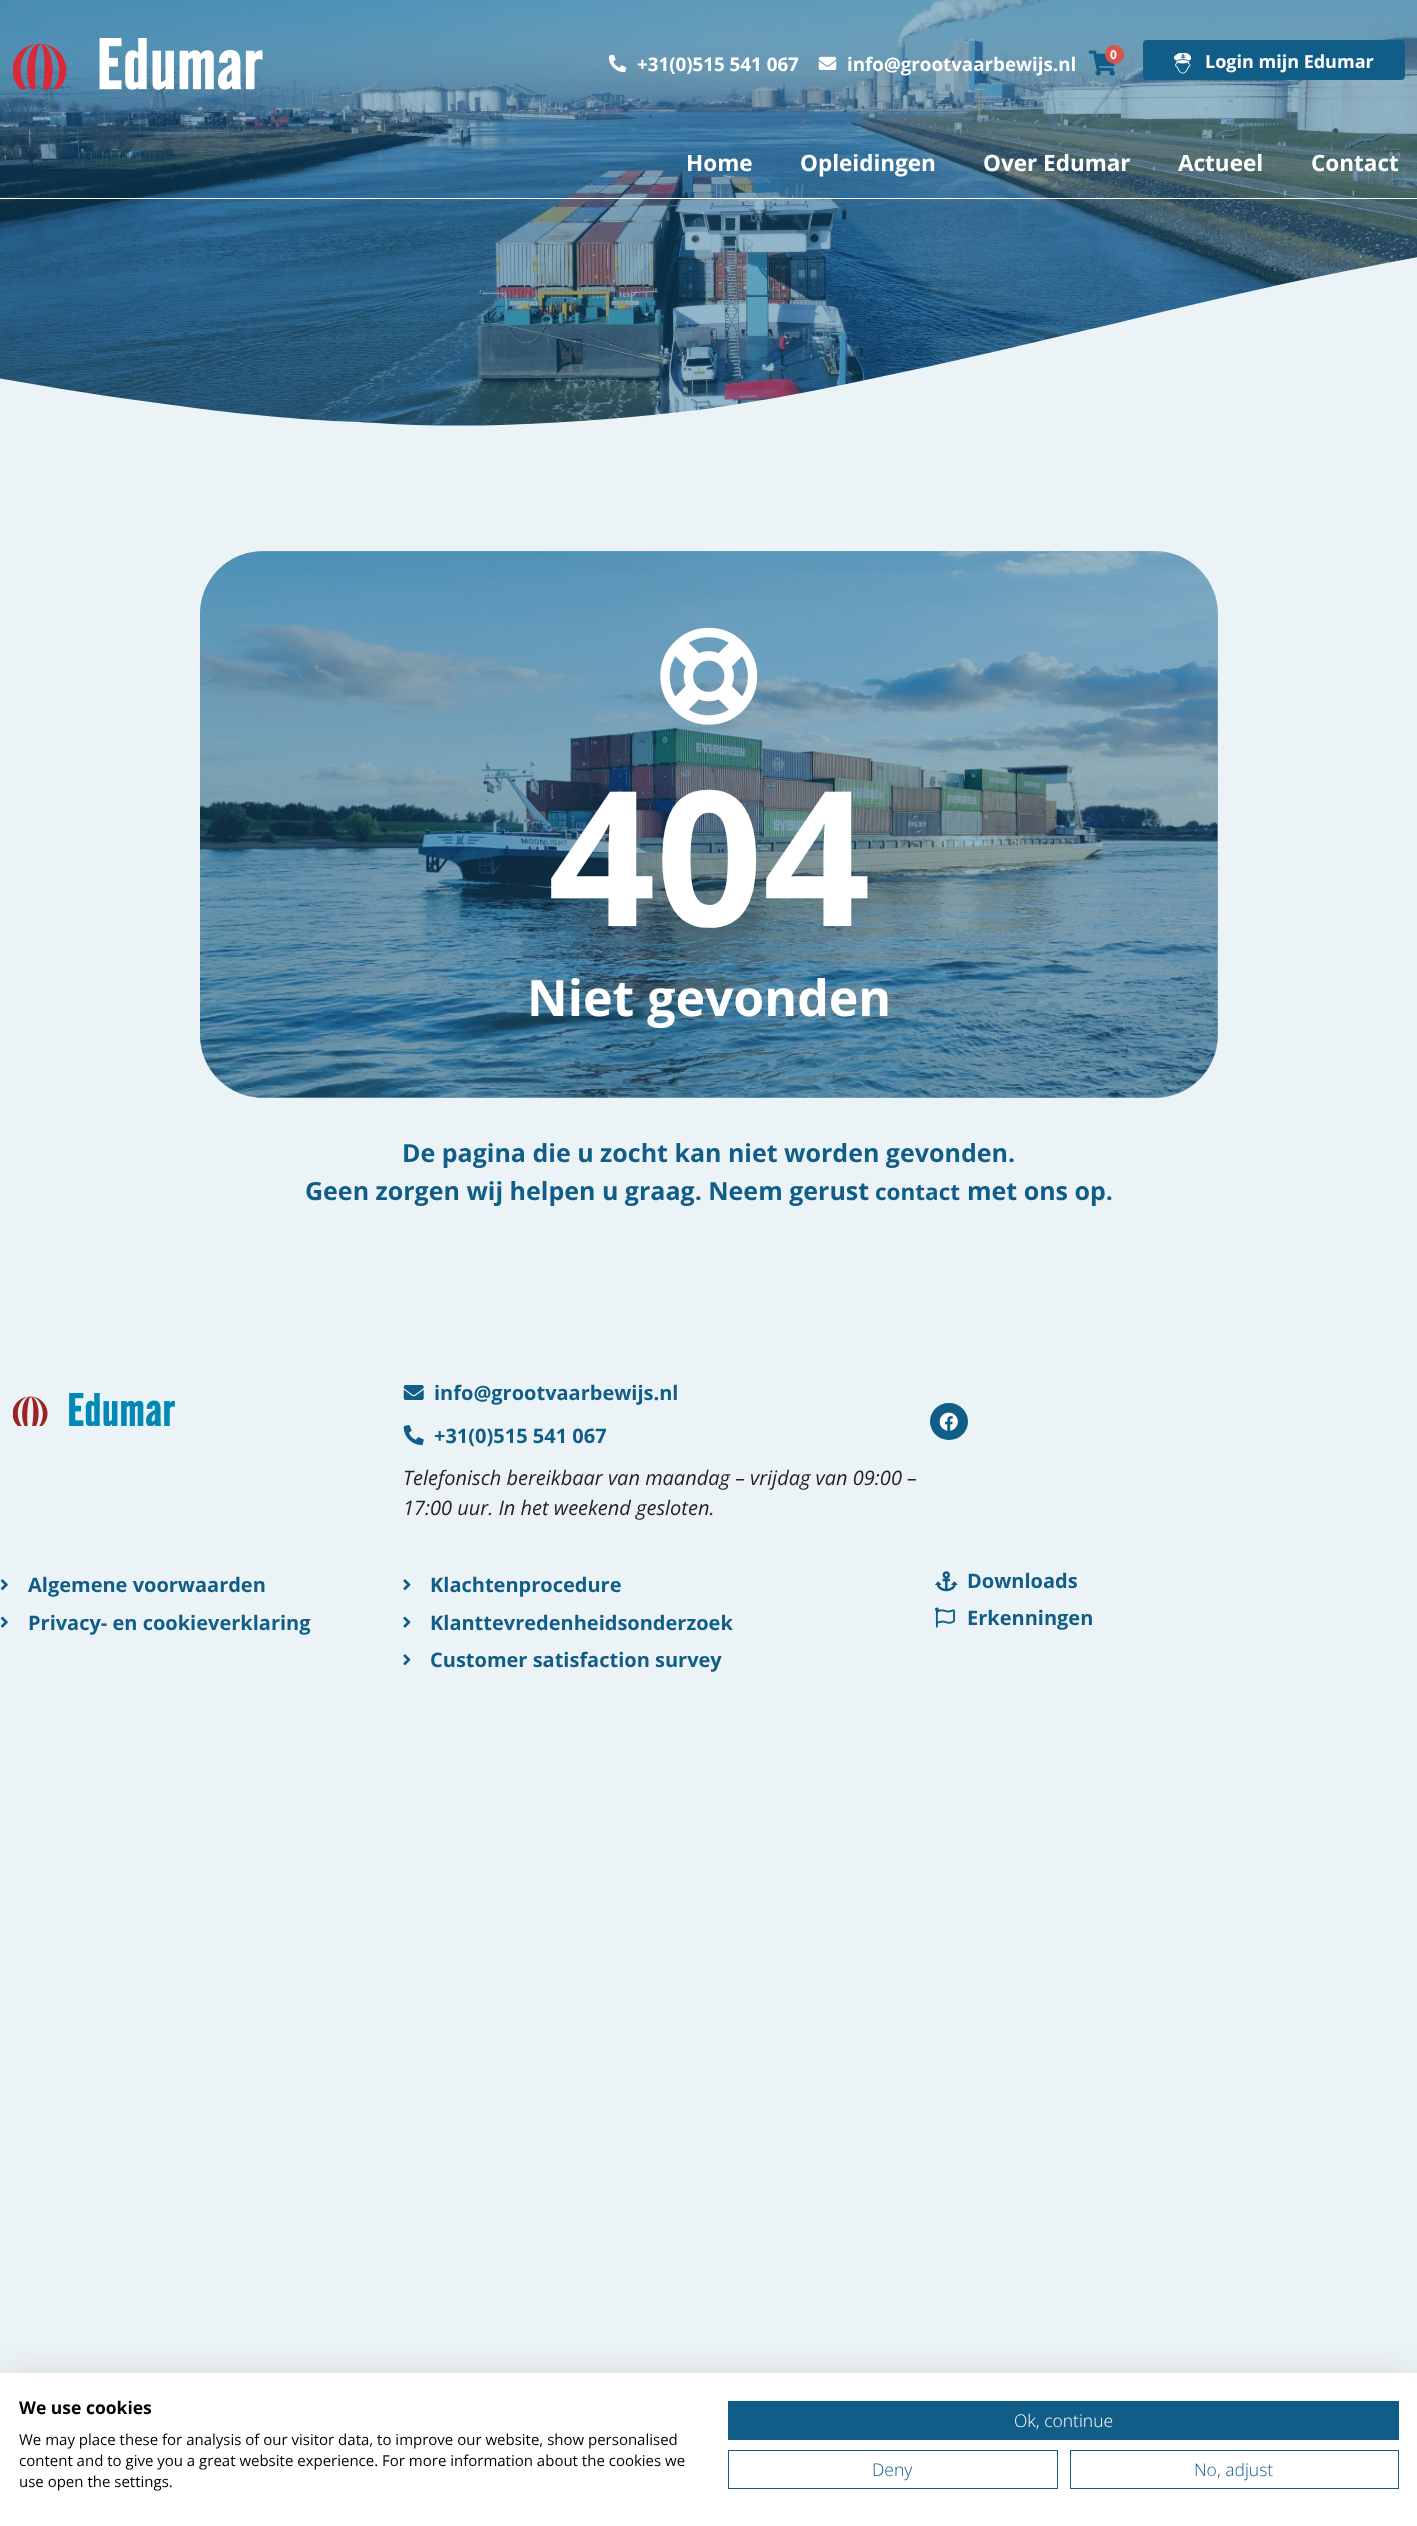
<svg xmlns="http://www.w3.org/2000/svg" width="1417" height="2526" viewBox="0 0 1417 2526">
  <defs>
    <filter id="blur1" x="-50%" y="-200%" width="200%" height="500%"><feGaussianBlur stdDeviation="15"/></filter>
  </defs>
  <rect width="100%" height="100%" fill="#ecf3f6"/>
  <image x="0" y="0" width="1417" height="426" href="img6.png"/>
  <image x="13" y="38" width="250" height="52" href="img1.png"/>
  <image x="609" y="54" width="18" height="19" href="img2.png"/>
  <text x="637" y="71" font-family="Open Sans" font-size="18.75" font-weight="bold" fill="#ffffff">+31(0)515 541 067</text>
  <image x="818" y="56" width="19" height="14" href="img3.png"/>
  <text x="847" y="71" font-family="Open Sans" font-size="18.75" font-weight="bold" fill="#ffffff">info@grootvaarbewijs.nl</text>
  <image x="1088" y="50" width="27" height="26" href="img4.png"/>
  <circle cx="1114.5" cy="54.5" r="9.5" fill="#d9534f"/>
  <text x="1110" y="59" font-family="Open Sans" font-size="12" font-weight="bold" fill="#ffffff">0</text>
  <rect x="1143" y="40" width="262" height="40" rx="4" fill="#105e88"/>
  <image x="1174" y="53" width="17" height="21" href="img5.png"/>
  <text x="1205" y="68" font-family="Open Sans" font-size="18" font-weight="bold" fill="#ffffff">Login mijn Edumar</text>
  <rect x="0" y="198" width="1417" height="1" fill="#ffffff"/>
  <text x="686" y="171" font-family="Open Sans" font-size="22.5" font-weight="bold" fill="#ffffff">Home</text>
  <text x="800" y="171" font-family="Open Sans" font-size="22.5" font-weight="bold" fill="#ffffff">Opleidingen</text>
  <text x="983" y="171" font-family="Open Sans" font-size="22.5" font-weight="bold" fill="#ffffff">Over Edumar</text>
  <text x="1178" y="171" font-family="Open Sans" font-size="22.5" font-weight="bold" fill="#ffffff">Actueel</text>
  <text x="1311" y="171" font-family="Open Sans" font-size="22.5" font-weight="bold" fill="#ffffff">Contact</text>
  <path d="M377 423C473 430 596 422 698 410C798 398 999 351 1125 321C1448 240 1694 210 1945 197C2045 191 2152 188 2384 203C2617 218 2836 267 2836 267V440H-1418V364C-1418 364-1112 282-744 288C-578 289-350 304-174 344C-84 364 48 389 165 404C280 420 333 421 377 423Z" fill="#ecf3f6"/>
  <image x="200" y="551" width="1018" height="547" href="img7.png"/>
  <rect x="200" y="551" width="1018" height="547" rx="63" fill="#105e88" fill-opacity="0.45"/>
  <image x="660" y="627" width="98" height="98" href="img8.png"/>
  <text x="548" y="926" font-family="Open Sans" font-size="188" font-weight="bold" fill="#ffffff">404</text>
  <text x="527" y="1016" font-family="Open Sans" font-size="50" font-weight="bold" fill="#ffffff">Niet gevonden</text>
  <text x="402" y="1162" font-family="Open Sans" font-size="25" font-weight="bold" fill="#105e88">De pagina die u zocht kan niet worden gevonden.</text>
  <text x="305" y="1200" font-family="Open Sans" font-size="25" font-weight="bold" fill="#105e88">Geen zorgen wij helpen u graag. Neem gerust</text>
  <text x="875" y="1200" font-family="Open Sans" font-size="22.5" font-weight="bold" fill="#105e88">contact</text>
  <text x="967" y="1200" font-family="Open Sans" font-size="25" font-weight="bold" fill="#105e88">met ons op.</text>
  <image x="13" y="1393" width="162" height="33" href="img9.png"/>
  <image x="403" y="1385" width="21" height="15" href="img10.png"/>
  <text x="434" y="1400" font-family="Open Sans" font-size="20" font-weight="bold" fill="#105e88">info@grootvaarbewijs.nl</text>
  <image x="403" y="1425" width="21" height="20" href="img11.png"/>
  <text x="434" y="1443" font-family="Open Sans" font-size="20" font-weight="bold" fill="#105e88">+31(0)515 541 067</text>
  <text x="403" y="1485" font-family="Open Sans" font-size="20" font-style="italic" fill="#242424">Telefonisch bereikbaar van maandag – vrijdag van 09:00 –</text>
  <text x="403" y="1515" font-family="Open Sans" font-size="20" font-style="italic" fill="#242424">17:00 uur. In het weekend gesloten.</text>
  <rect x="930" y="1403" width="38" height="37" rx="18.5" fill="#105e88"/>
  <image x="939" y="1412" width="19" height="19" href="img12.png"/>
  <image x="0" y="1579" width="8" height="12" href="img13.png"/>
  <text x="28" y="1592" font-family="Open Sans" font-size="20" font-weight="bold" fill="#105e88">Algemene voorwaarden</text>
  <image x="0" y="1616" width="8" height="12" href="img14.png"/>
  <text x="28" y="1630" font-family="Open Sans" font-size="20" font-weight="bold" fill="#105e88">Privacy- en cookieverklaring</text>
  <image x="403" y="1579" width="8" height="12" href="img15.png"/>
  <text x="430" y="1592" font-family="Open Sans" font-size="20" font-weight="bold" fill="#105e88">Klachtenprocedure</text>
  <image x="403" y="1616" width="8" height="12" href="img16.png"/>
  <text x="430" y="1630" font-family="Open Sans" font-size="20" font-weight="bold" fill="#105e88">Klanttevredenheidsonderzoek</text>
  <image x="403" y="1654" width="8" height="12" href="img15.png"/>
  <text x="430" y="1667" font-family="Open Sans" font-size="20" font-weight="bold" fill="#105e88">Customer satisfaction survey</text>
  <image x="935" y="1571" width="23" height="21" href="img17.png"/>
  <text x="967" y="1588" font-family="Open Sans" font-size="20" font-weight="bold" fill="#105e88">Downloads</text>
  <image x="935" y="1607" width="20" height="21" href="img18.png"/>
  <text x="967" y="1625" font-family="Open Sans" font-size="20" font-weight="bold" fill="#105e88">Erkenningen</text>
  <rect x="0" y="2373" width="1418" height="153" fill="#000000" fill-opacity="0.1" filter="url(#blur1)"/>
  <rect x="0" y="2373" width="1417" height="153" fill="#ffffff"/>
  <text x="19" y="2414" font-family="Open Sans" font-size="17.5" font-weight="bold" fill="#000000">We use cookies</text>
  <text x="19" y="2445" font-family="Open Sans" font-size="15" fill="#000000">We may place these for analysis of our visitor data, to improve our website, show personalised</text>
  <text x="19" y="2466" font-family="Open Sans" font-size="15" fill="#000000">content and to give you a great website experience. For more information about the cookies we</text>
  <text x="19" y="2487" font-family="Open Sans" font-size="15" fill="#000000">use open the settings.</text>
  <rect x="728" y="2401" width="671" height="39" fill="#105e88"/>
  <text x="1014" y="2427" font-family="Open Sans" font-size="17.5" font-weight="300" fill="#ffffff">Ok, continue</text>
  <rect x="728.5" y="2450.5" width="329" height="38" fill="none" stroke="#105e88"/>
  <text x="872" y="2476" font-family="Open Sans" font-size="17.5" font-weight="300" fill="#105e88">Deny</text>
  <rect x="1070.5" y="2450.5" width="328" height="38" fill="none" stroke="#105e88"/>
  <text x="1194" y="2476" font-family="Open Sans" font-size="17.5" font-weight="300" fill="#105e88">No, adjust</text>
</svg>
